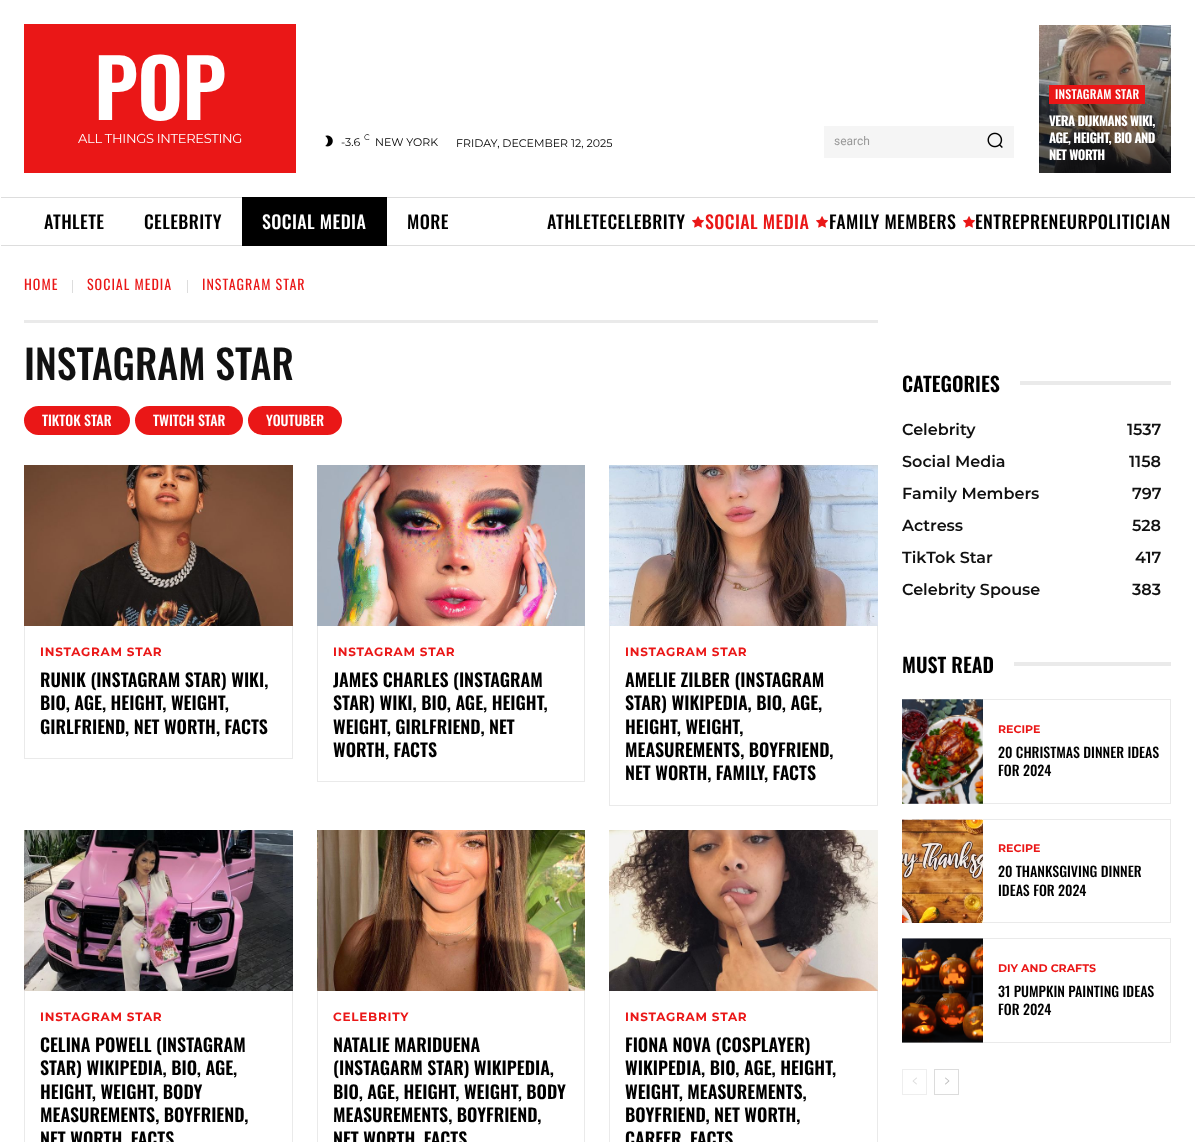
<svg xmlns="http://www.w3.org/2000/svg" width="1195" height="1142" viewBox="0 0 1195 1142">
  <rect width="100%" height="100%" fill="#ffffff"/>
  <rect x="24" y="24" width="272" height="149" fill="#ea1717"/>
  <text x="94" y="120" font-family="Oswald" font-size="80" font-weight="600" letter-spacing="-1" fill="#ffffff">POP</text>
  <text x="78" y="143" font-family="Montserrat" font-size="13" letter-spacing="-0.3" fill="#ffffff">ALL THINGS INTERESTING</text>
  <image x="325" y="135" width="8" height="12" href="img1.png"/>
  <text x="341" y="146" font-family="Montserrat" font-size="11" fill="#000000">-3.6</text>
  <text x="364" y="140" font-family="Montserrat" font-size="8" fill="#000000">C</text>
  <text x="375" y="146" font-family="Montserrat" font-size="11" fill="#000000">NEW YORK</text>
  <text x="456" y="147" font-family="Montserrat" font-size="11" fill="#000000">FRIDAY, DECEMBER 12, 2025</text>
  <rect x="824" y="126" width="190" height="32" fill="#f5f5f5"/>
  <text x="834" y="145" font-family="Roboto" font-size="12" fill="#999999">search</text>
  <image x="987" y="132" width="16" height="16" href="img2.png"/>
  <image x="1039" y="25" width="132" height="148" href="img3.png"/>
  <rect x="1049" y="85" width="96" height="19" fill="#ea1717"/>
  <text x="1055" y="99" font-family="Oswald" font-size="12" font-weight="500" letter-spacing="0.25" fill="#ffffff">INSTAGRAM STAR</text>
  <text x="1049" y="126" font-family="Oswald" font-size="13" font-weight="bold" letter-spacing="-0.5" fill="#ffffff">VERA DIJKMANS WIKI,</text>
  <text x="1049" y="143" font-family="Oswald" font-size="13" font-weight="bold" letter-spacing="-0.5" fill="#ffffff">AGE, HEIGHT, BIO AND</text>
  <text x="1049" y="160" font-family="Oswald" font-size="13" font-weight="bold" letter-spacing="-0.5" fill="#ffffff">NET WORTH</text>
  <rect x="1" y="197" width="1194" height="1" fill="#dddddd"/>
  <rect x="1" y="245" width="1194" height="1" fill="#dddddd"/>
  <text x="44" y="229" font-family="Oswald" font-size="18" font-weight="500" letter-spacing="0.4" fill="#000000">ATHLETE</text>
  <text x="144" y="229" font-family="Oswald" font-size="18" font-weight="500" letter-spacing="0.4" fill="#000000">CELEBRITY</text>
  <rect x="242" y="197" width="145" height="49" fill="#000000"/>
  <text x="262" y="229" font-family="Oswald" font-size="18" font-weight="500" letter-spacing="0.4" fill="#ffffff">SOCIAL MEDIA</text>
  <text x="407" y="229" font-family="Oswald" font-size="18" font-weight="500" letter-spacing="0.4" fill="#000000">MORE</text>
  <text x="547" y="229" font-family="Oswald" font-size="18" font-weight="500" letter-spacing="0.4" fill="#000000">ATHLETECELEBRITY</text>
  <image x="692" y="216" width="12" height="12" href="img4.png"/>
  <text x="705" y="229" font-family="Oswald" font-size="18" font-weight="500" letter-spacing="0.4" fill="#ea1717">SOCIAL MEDIA</text>
  <image x="816" y="216" width="12" height="12" href="img4.png"/>
  <text x="829" y="229" font-family="Oswald" font-size="18" font-weight="500" letter-spacing="0.4" fill="#000000">FAMILY MEMBERS</text>
  <image x="963" y="216" width="12" height="12" href="img4.png"/>
  <text x="975" y="229" font-family="Oswald" font-size="18" font-weight="500" letter-spacing="0.4" fill="#000000">ENTREPRENEURPOLITICIAN</text>
  <text x="24" y="290" font-family="Oswald" font-size="14" letter-spacing="1" fill="#ea1717">HOME</text>
  <rect x="72" y="280" width="1" height="13" fill="#dddddd"/>
  <text x="87" y="290" font-family="Oswald" font-size="14" letter-spacing="1" fill="#ea1717">SOCIAL MEDIA</text>
  <rect x="187" y="280" width="1" height="13" fill="#dddddd"/>
  <text x="202" y="290" font-family="Oswald" font-size="14" letter-spacing="1" fill="#ea1717">INSTAGRAM STAR</text>
  <rect x="24" y="320" width="854" height="3" fill="#eaeaea"/>
  <text x="24" y="380" font-family="Oswald" font-size="40" font-weight="500" fill="#111111">INSTAGRAM STAR</text>
  <rect x="24" y="406" width="106" height="29" rx="14.5" fill="#ea1717"/>
  <text x="42" y="426" font-family="Oswald" font-size="14" font-weight="500" fill="#ffffff">TIKTOK STAR</text>
  <rect x="135" y="406" width="108" height="29" rx="14.5" fill="#ea1717"/>
  <text x="153" y="426" font-family="Oswald" font-size="14" font-weight="500" fill="#ffffff">TWITCH STAR</text>
  <rect x="248" y="406" width="94" height="29" rx="14.5" fill="#ea1717"/>
  <text x="266" y="426" font-family="Oswald" font-size="14" font-weight="500" fill="#ffffff">YOUTUBER</text>
  <image x="24" y="465" width="269" height="161" href="img5.png"/>
  <rect x="292" y="626" width="1" height="133" fill="#eaeaea"/>
  <rect x="24" y="758" width="269" height="1" fill="#eaeaea"/>
  <rect x="24" y="626" width="1" height="133" fill="#eaeaea"/>
  <text x="40" y="656" font-family="Montserrat" font-size="12" font-weight="bold" letter-spacing="0.75" fill="#ea1717">INSTAGRAM STAR</text>
  <text x="40" y="687" font-family="Oswald" font-size="18" font-weight="600" fill="#000000">RUNIK (INSTAGRAM STAR) WIKI,</text>
  <text x="40" y="710" font-family="Oswald" font-size="18" font-weight="600" fill="#000000">BIO, AGE, HEIGHT, WEIGHT,</text>
  <text x="40" y="734" font-family="Oswald" font-size="18" font-weight="600" fill="#000000">GIRLFRIEND, NET WORTH, FACTS</text>
  <image x="317" y="465" width="268" height="161" href="img6.png"/>
  <rect x="584" y="626" width="1" height="156" fill="#eaeaea"/>
  <rect x="317" y="781" width="268" height="1" fill="#eaeaea"/>
  <rect x="317" y="626" width="1" height="156" fill="#eaeaea"/>
  <text x="333" y="656" font-family="Montserrat" font-size="12" font-weight="bold" letter-spacing="0.75" fill="#ea1717">INSTAGRAM STAR</text>
  <text x="333" y="687" font-family="Oswald" font-size="18" font-weight="600" fill="#000000">JAMES CHARLES (INSTAGRAM</text>
  <text x="333" y="710" font-family="Oswald" font-size="18" font-weight="600" fill="#000000">STAR) WIKI, BIO, AGE, HEIGHT,</text>
  <text x="333" y="734" font-family="Oswald" font-size="18" font-weight="600" fill="#000000">WEIGHT, GIRLFRIEND, NET</text>
  <text x="333" y="757" font-family="Oswald" font-size="18" font-weight="600" fill="#000000">WORTH, FACTS</text>
  <image x="609" y="465" width="269" height="161" href="img7.png"/>
  <rect x="877" y="626" width="1" height="180" fill="#eaeaea"/>
  <rect x="609" y="805" width="269" height="1" fill="#eaeaea"/>
  <rect x="609" y="626" width="1" height="180" fill="#eaeaea"/>
  <text x="625" y="656" font-family="Montserrat" font-size="12" font-weight="bold" letter-spacing="0.75" fill="#ea1717">INSTAGRAM STAR</text>
  <text x="625" y="687" font-family="Oswald" font-size="18" font-weight="600" fill="#000000">AMELIE ZILBER (INSTAGRAM</text>
  <text x="625" y="710" font-family="Oswald" font-size="18" font-weight="600" fill="#000000">STAR) WIKIPEDIA, BIO, AGE,</text>
  <text x="625" y="734" font-family="Oswald" font-size="18" font-weight="600" fill="#000000">HEIGHT, WEIGHT,</text>
  <text x="625" y="757" font-family="Oswald" font-size="18" font-weight="600" fill="#000000">MEASUREMENTS, BOYFRIEND,</text>
  <text x="625" y="780" font-family="Oswald" font-size="18" font-weight="600" fill="#000000">NET WORTH, FAMILY, FACTS</text>
  <image x="24" y="830" width="269" height="161" href="img8.png"/>
  <rect x="292" y="991" width="1" height="151" fill="#eaeaea"/>
  <rect x="24" y="991" width="1" height="151" fill="#eaeaea"/>
  <text x="40" y="1021" font-family="Montserrat" font-size="12" font-weight="bold" letter-spacing="0.75" fill="#ea1717">INSTAGRAM STAR</text>
  <text x="40" y="1052" font-family="Oswald" font-size="18" font-weight="600" fill="#000000">CELINA POWELL (INSTAGRAM</text>
  <text x="40" y="1075" font-family="Oswald" font-size="18" font-weight="600" fill="#000000">STAR) WIKIPEDIA, BIO, AGE,</text>
  <text x="40" y="1099" font-family="Oswald" font-size="18" font-weight="600" fill="#000000">HEIGHT, WEIGHT, BODY</text>
  <text x="40" y="1122" font-family="Oswald" font-size="18" font-weight="600" fill="#000000">MEASUREMENTS, BOYFRIEND,</text>
  <text x="40" y="1146" font-family="Oswald" font-size="18" font-weight="600" fill="#000000">NET WORTH, FACTS</text>
  <image x="317" y="830" width="268" height="161" href="img9.png"/>
  <rect x="584" y="991" width="1" height="151" fill="#eaeaea"/>
  <rect x="317" y="991" width="1" height="151" fill="#eaeaea"/>
  <text x="333" y="1021" font-family="Montserrat" font-size="12" font-weight="bold" letter-spacing="0.75" fill="#ea1717">CELEBRITY</text>
  <text x="333" y="1052" font-family="Oswald" font-size="18" font-weight="600" fill="#000000">NATALIE MARIDUENA</text>
  <text x="333" y="1075" font-family="Oswald" font-size="18" font-weight="600" fill="#000000">(INSTAGARM STAR) WIKIPEDIA,</text>
  <text x="333" y="1099" font-family="Oswald" font-size="18" font-weight="600" fill="#000000">BIO, AGE, HEIGHT, WEIGHT, BODY</text>
  <text x="333" y="1122" font-family="Oswald" font-size="18" font-weight="600" fill="#000000">MEASUREMENTS, BOYFRIEND,</text>
  <text x="333" y="1146" font-family="Oswald" font-size="18" font-weight="600" fill="#000000">NET WORTH, FACTS</text>
  <image x="609" y="830" width="269" height="161" href="img10.png"/>
  <rect x="877" y="991" width="1" height="151" fill="#eaeaea"/>
  <rect x="609" y="991" width="1" height="151" fill="#eaeaea"/>
  <text x="625" y="1021" font-family="Montserrat" font-size="12" font-weight="bold" letter-spacing="0.75" fill="#ea1717">INSTAGRAM STAR</text>
  <text x="625" y="1052" font-family="Oswald" font-size="18" font-weight="600" fill="#000000">FIONA NOVA (COSPLAYER)</text>
  <text x="625" y="1075" font-family="Oswald" font-size="18" font-weight="600" fill="#000000">WIKIPEDIA, BIO, AGE, HEIGHT,</text>
  <text x="625" y="1099" font-family="Oswald" font-size="18" font-weight="600" fill="#000000">WEIGHT, MEASUREMENTS,</text>
  <text x="625" y="1122" font-family="Oswald" font-size="18" font-weight="600" fill="#000000">BOYFRIEND, NET WORTH,</text>
  <text x="625" y="1146" font-family="Oswald" font-size="18" font-weight="600" fill="#000000">CAREER, FACTS</text>
  <text x="902" y="392" font-family="Oswald" font-size="20" font-weight="600" fill="#000000">CATEGORIES</text>
  <rect x="1020" y="381" width="151" height="4" fill="#eaeaea"/>
  <text x="902" y="435" font-family="Montserrat" font-size="16" font-weight="600" fill="#111111">Celebrity</text>
  <text x="1127" y="435" font-family="Montserrat" font-size="16" font-weight="600" fill="#111111">1537</text>
  <text x="902" y="467" font-family="Montserrat" font-size="16" font-weight="600" fill="#111111">Social Media</text>
  <text x="1129" y="467" font-family="Montserrat" font-size="16" font-weight="600" fill="#111111">1158</text>
  <text x="902" y="499" font-family="Montserrat" font-size="16" font-weight="600" fill="#111111">Family Members</text>
  <text x="1132" y="499" font-family="Montserrat" font-size="16" font-weight="600" fill="#111111">797</text>
  <text x="902" y="531" font-family="Montserrat" font-size="16" font-weight="600" fill="#111111">Actress</text>
  <text x="1132" y="531" font-family="Montserrat" font-size="16" font-weight="600" fill="#111111">528</text>
  <text x="902" y="563" font-family="Montserrat" font-size="16" font-weight="600" fill="#111111">TikTok Star</text>
  <text x="1135" y="563" font-family="Montserrat" font-size="16" font-weight="600" fill="#111111">417</text>
  <text x="902" y="595" font-family="Montserrat" font-size="16" font-weight="600" fill="#111111">Celebrity Spouse</text>
  <text x="1132" y="595" font-family="Montserrat" font-size="16" font-weight="600" fill="#111111">383</text>
  <text x="902" y="673" font-family="Oswald" font-size="20" font-weight="600" fill="#000000">MUST READ</text>
  <rect x="1014" y="662" width="157" height="4" fill="#eaeaea"/>
  <image x="902" y="699" width="81" height="105" href="img11.png"/>
  <rect x="983" y="699" width="188" height="1" fill="#eaeaea"/>
  <rect x="1170" y="699" width="1" height="105" fill="#eaeaea"/>
  <rect x="983" y="803" width="188" height="1" fill="#eaeaea"/>
  <text x="998" y="733" font-family="Montserrat" font-size="11" font-weight="bold" fill="#ea1717">RECIPE</text>
  <text x="998" y="758" font-family="Oswald" font-size="14" font-weight="500" fill="#000000">20 CHRISTMAS DINNER IDEAS</text>
  <text x="998" y="776" font-family="Oswald" font-size="14" font-weight="500" fill="#000000">FOR 2024</text>
  <image x="902" y="819" width="81" height="104" href="img12.png"/>
  <rect x="983" y="819" width="188" height="1" fill="#eaeaea"/>
  <rect x="1170" y="819" width="1" height="104" fill="#eaeaea"/>
  <rect x="983" y="922" width="188" height="1" fill="#eaeaea"/>
  <text x="998" y="852" font-family="Montserrat" font-size="11" font-weight="bold" fill="#ea1717">RECIPE</text>
  <text x="998" y="877" font-family="Oswald" font-size="14" font-weight="500" fill="#000000">20 THANKSGIVING DINNER</text>
  <text x="998" y="896" font-family="Oswald" font-size="14" font-weight="500" fill="#000000">IDEAS FOR 2024</text>
  <image x="902" y="938" width="81" height="105" href="img13.png"/>
  <rect x="983" y="938" width="188" height="1" fill="#eaeaea"/>
  <rect x="1170" y="938" width="1" height="105" fill="#eaeaea"/>
  <rect x="983" y="1042" width="188" height="1" fill="#eaeaea"/>
  <text x="998" y="972" font-family="Montserrat" font-size="11" font-weight="bold" fill="#ea1717">DIY AND CRAFTS</text>
  <text x="998" y="997" font-family="Oswald" font-size="14" font-weight="500" fill="#000000">31 PUMPKIN PAINTING IDEAS</text>
  <text x="998" y="1015" font-family="Oswald" font-size="14" font-weight="500" fill="#000000">FOR 2024</text>
  <rect x="902.5" y="1069.5" width="24" height="25" fill="none" stroke="#eeeeee"/>
  <image x="912" y="1077" width="5" height="8" href="img14.png"/>
  <rect x="934.5" y="1069.5" width="24" height="25" fill="none" stroke="#dcdcdc"/>
  <image x="945" y="1077" width="5" height="8" href="img15.png"/>
</svg>
